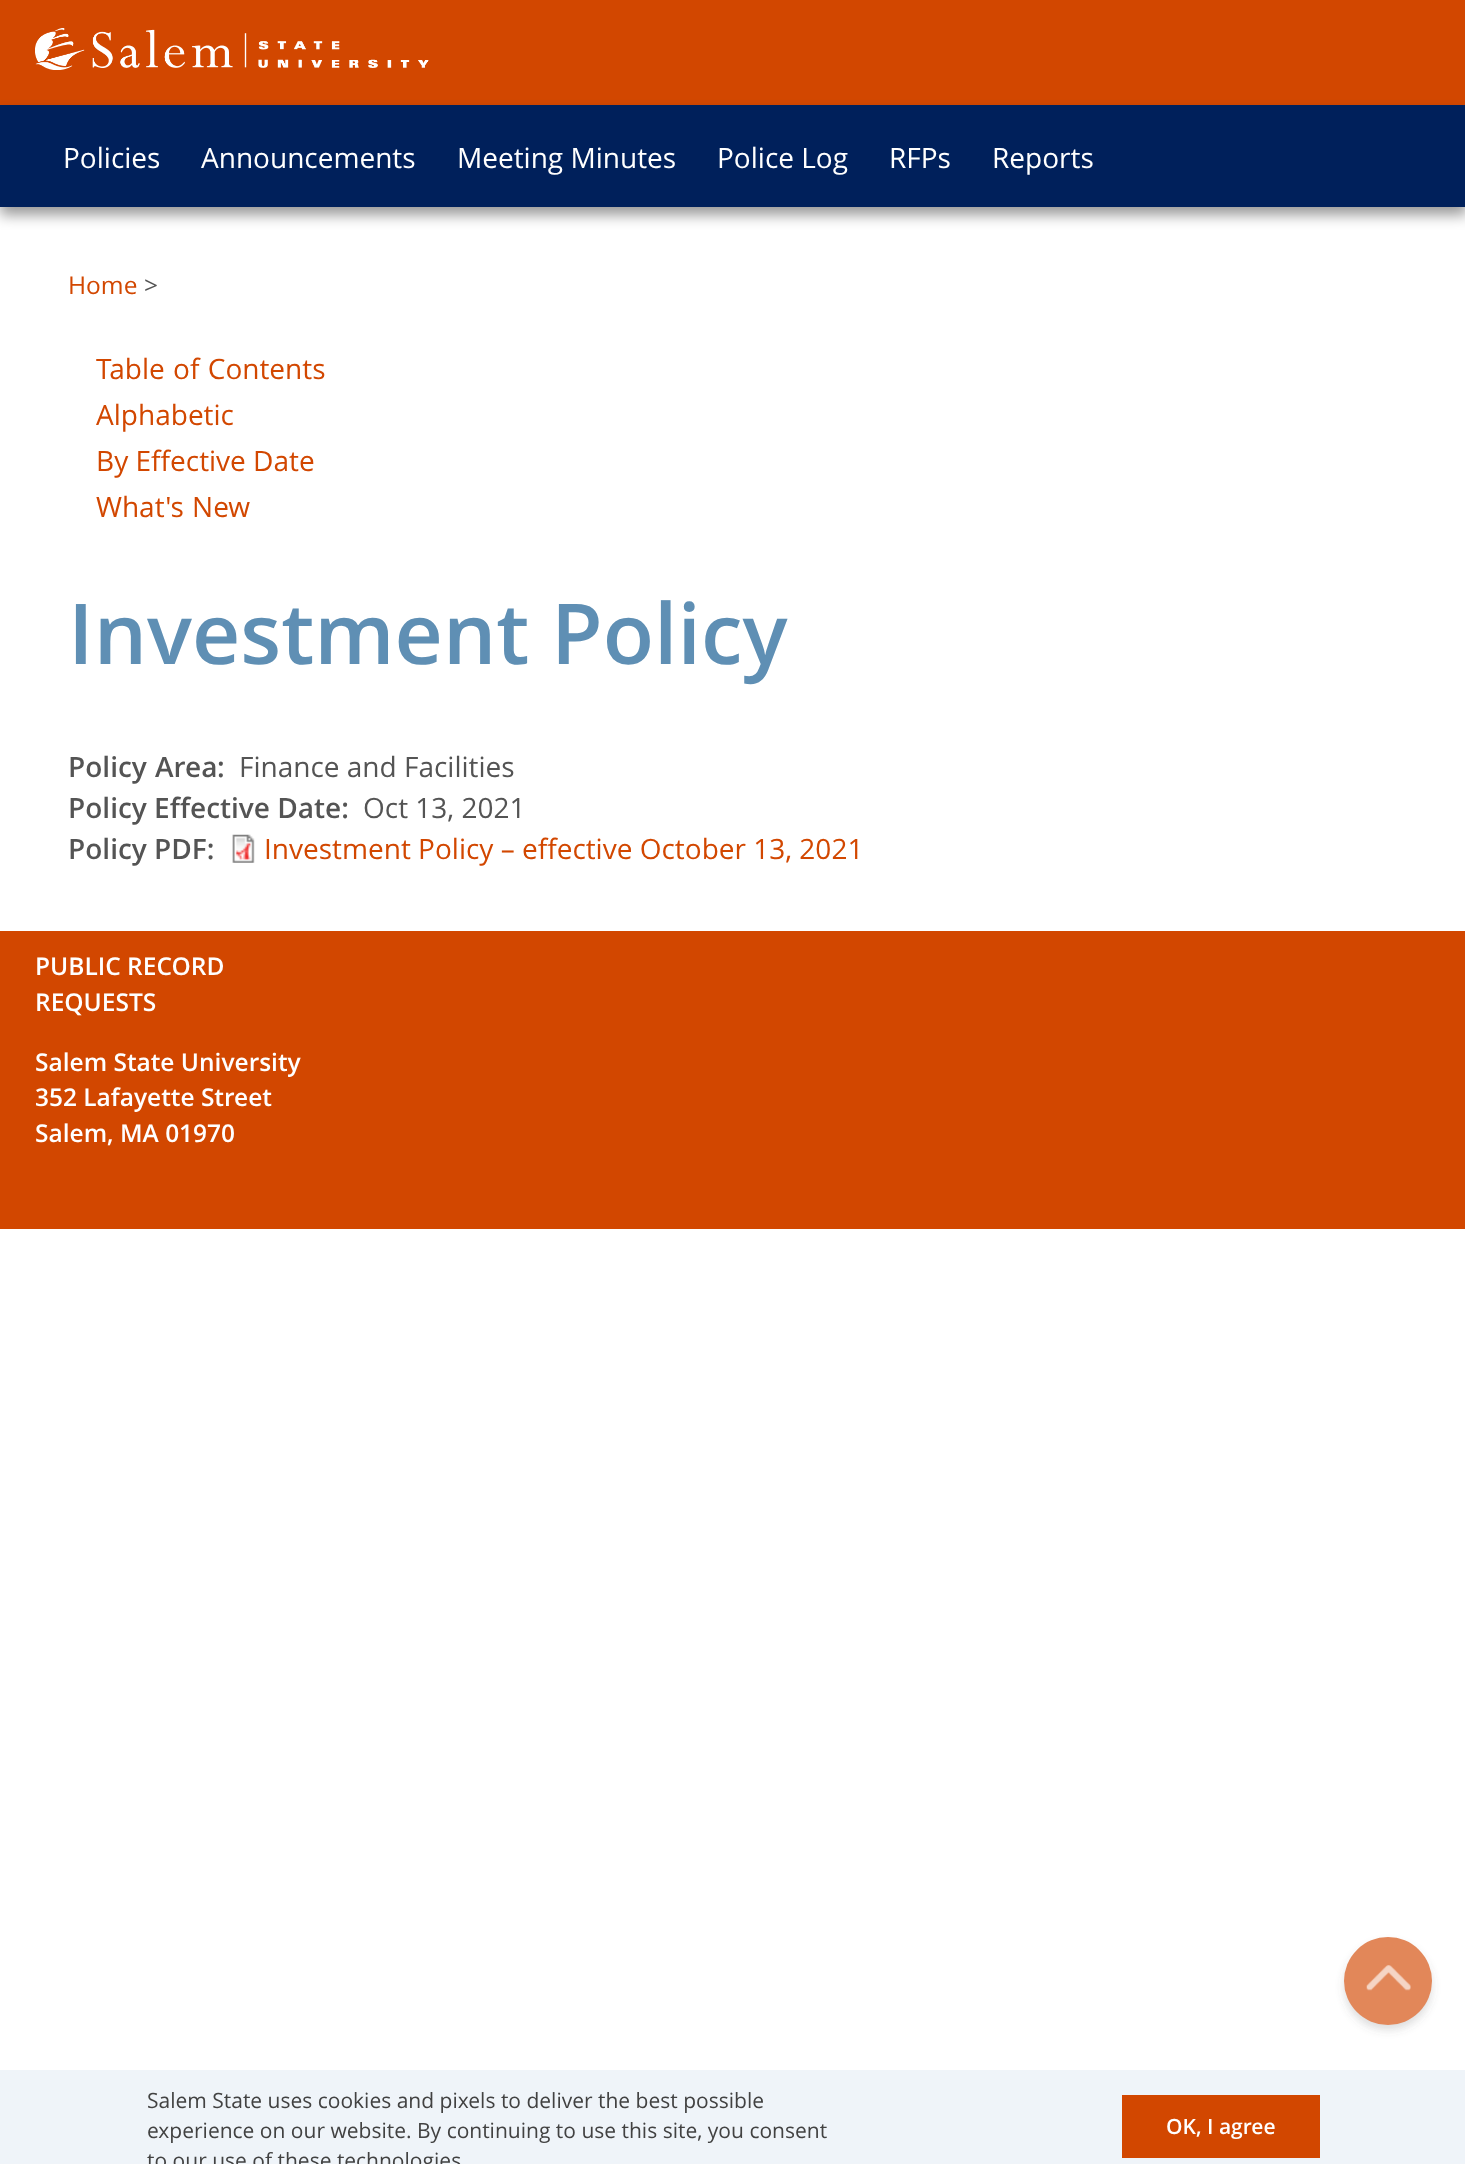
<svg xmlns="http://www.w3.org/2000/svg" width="1465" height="2164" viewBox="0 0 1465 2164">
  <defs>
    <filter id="blur1" x="-50%" y="-200%" width="200%" height="500%"><feGaussianBlur stdDeviation="7"/></filter>
    <filter id="blur2" x="-50%" y="-200%" width="200%" height="500%"><feGaussianBlur stdDeviation="4.5"/></filter>
  </defs>
  <rect width="100%" height="100%" fill="#ffffff"/>
  <rect x="0" y="0" width="1465" height="105" fill="#d24700"/>
  <image x="35" y="28" width="394" height="42" href="img1.png"/>
  <rect x="0" y="114" width="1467" height="101" fill="#000000" fill-opacity="0.4" filter="url(#blur1)"/>
  <rect x="0" y="105" width="1465" height="102" fill="#00205b"/>
  <text x="63" y="168" font-family="Open Sans" font-size="28" fill="#ffffff">Policies</text>
  <text x="201" y="168" font-family="Open Sans" font-size="28" fill="#ffffff">Announcements</text>
  <text x="457" y="168" font-family="Open Sans" font-size="28" fill="#ffffff">Meeting Minutes</text>
  <text x="717" y="168" font-family="Open Sans" font-size="28" fill="#ffffff">Police Log</text>
  <text x="889" y="168" font-family="Open Sans" font-size="28" fill="#ffffff">RFPs</text>
  <text x="992" y="168" font-family="Open Sans" font-size="28" fill="#ffffff">Reports</text>
  <text x="68" y="294" font-family="Open Sans" font-size="24.5" fill="#d24700">Home</text>
  <text x="144" y="294" font-family="Open Sans" font-size="24.5" fill="#545454">&gt;</text>
  <text x="96" y="379" word-spacing="1" font-family="Open Sans" font-size="28" fill="#d24700">Table of Contents</text>
  <text x="96" y="425" font-family="Open Sans" font-size="28" fill="#d24700">Alphabetic</text>
  <text x="96" y="471" font-family="Open Sans" font-size="28" fill="#d24700">By Effective Date</text>
  <text x="96" y="517" word-spacing="1" font-family="Open Sans" font-size="28" fill="#d24700">What's New</text>
  <text x="68" y="664" font-family="Open Sans" font-size="84" font-weight="600" fill="#5f8fb4">Investment Policy</text>
  <text x="68" y="777" word-spacing="1" font-family="Open Sans" font-size="28" font-weight="600" fill="#545454">Policy Area</text>
  <text x="217" y="777" font-family="Open Sans" font-size="28" font-weight="600" fill="#545454">:</text>
  <text x="239" y="777" font-family="Open Sans" font-size="28" fill="#545454">Finance and Facilities</text>
  <text x="68" y="818" font-family="Open Sans" font-size="28" font-weight="600" fill="#545454">Policy Effective Date:</text>
  <text x="363" y="818" font-family="Open Sans" font-size="28" fill="#545454">Oct 13, 2021</text>
  <text x="68" y="859" font-family="Open Sans" font-size="28" font-weight="600" fill="#545454">Policy PDF:</text>
  <image x="232" y="834" width="23" height="29" href="img2.png"/>
  <text x="264" y="859" font-family="Open Sans" font-size="28" fill="#d24700">Investment Policy – effective October 13, 2021</text>
  <rect x="0" y="931" width="1465" height="298" fill="#d24700"/>
  <text x="35" y="975" font-family="Open Sans" font-size="24.5" font-weight="600" fill="#ffffff">PUBLIC RECORD</text>
  <text x="35" y="1011" font-family="Open Sans" font-size="24.5" font-weight="600" fill="#ffffff">REQUESTS</text>
  <text x="35" y="1071" font-family="Open Sans" font-size="24.5" font-weight="600" fill="#ffffff">Salem State University</text>
  <text x="35" y="1106" font-family="Open Sans" font-size="24.5" font-weight="600" fill="#ffffff">352 Lafayette Street</text>
  <text x="35" y="1142" font-family="Open Sans" font-size="24.5" font-weight="600" fill="#ffffff">Salem, MA 01970</text>
  <rect x="1344" y="1943" width="88" height="87" rx="43.5" fill="#595959" fill-opacity="0.2" filter="url(#blur2)"/>
  <circle cx="1388" cy="1981" r="44" fill="#e28759"/>
  <image x="1366" y="1965" width="45" height="26" href="img3.png"/>
  <rect x="0" y="2070" width="1465" height="94" fill="#eff4f9"/>
  <text x="147" y="2108" font-family="Open Sans" font-size="21" fill="#424242">Salem State uses cookies and pixels to deliver the best possible</text>
  <text x="147" y="2138" font-family="Open Sans" font-size="21" fill="#424242">experience on our website. By continuing to use this site, you consent</text>
  <text x="147" y="2168" font-family="Open Sans" font-size="21" fill="#424242">to our use of these technologies</text>
  <rect x="1122" y="2095" width="198" height="63" fill="#d24700"/>
  <text x="1166" y="2134" font-family="Open Sans" font-size="21" font-weight="600" fill="#ffffff">OK, I agree</text>
</svg>
